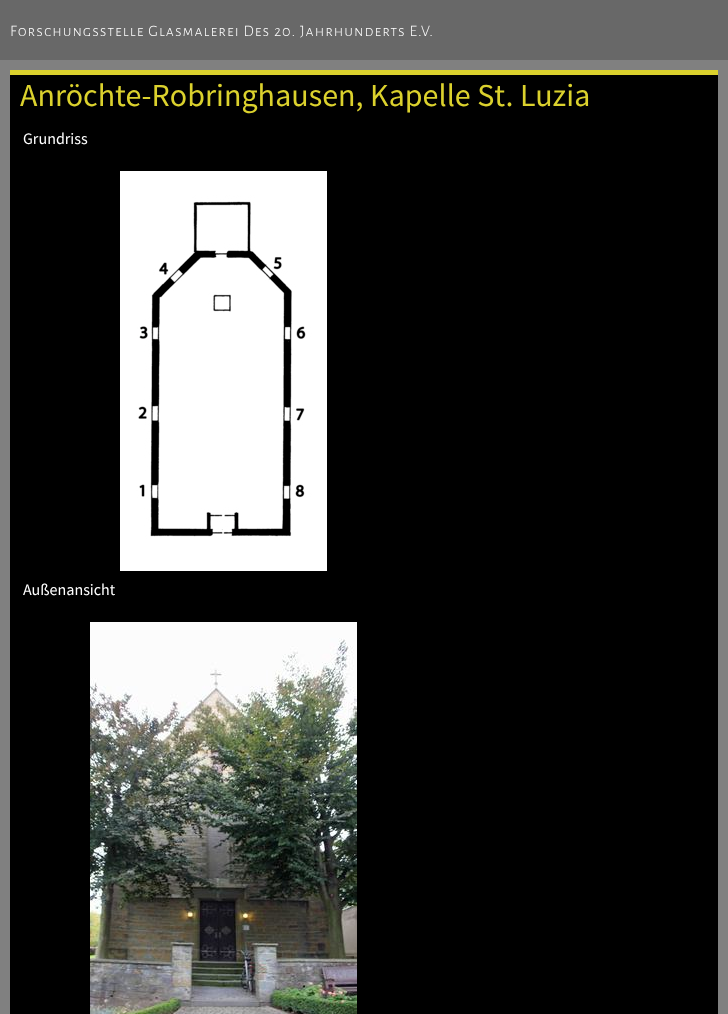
<svg xmlns="http://www.w3.org/2000/svg" width="728" height="1014" viewBox="0 0 728 1014">
  <rect width="100%" height="100%" fill="#808080"/>
  <rect x="0" y="0" width="728" height="60" fill="#686868"/>
  <text x="10" y="36" font-family="Alegreya Sans SC" font-size="16" font-weight="300" letter-spacing="1" fill="#ffffff">Forschungsstelle Glasmalerei Des 20. Jahrhunderts E.V.</text>
  <rect x="10" y="75" width="708" height="939" fill="#000000"/>
  <rect x="10" y="70" width="708" height="5" fill="#dbd12d"/>
  <text x="20" y="106" font-family="Source Sans Pro" font-size="32" fill="#dbd12d">Anröchte-Robringhausen, Kapelle St. Luzia</text>
  <text x="23" y="144" font-family="Source Sans Pro" font-size="16" fill="#ffffff">Grundriss</text>
  <image x="120" y="171" width="207" height="400" href="img1.png"/>
  <text x="23" y="595" font-family="Source Sans Pro" font-size="16" fill="#ffffff">Außenansicht</text>
  <image x="90" y="622" width="267" height="392" href="img2.png"/>
</svg>
